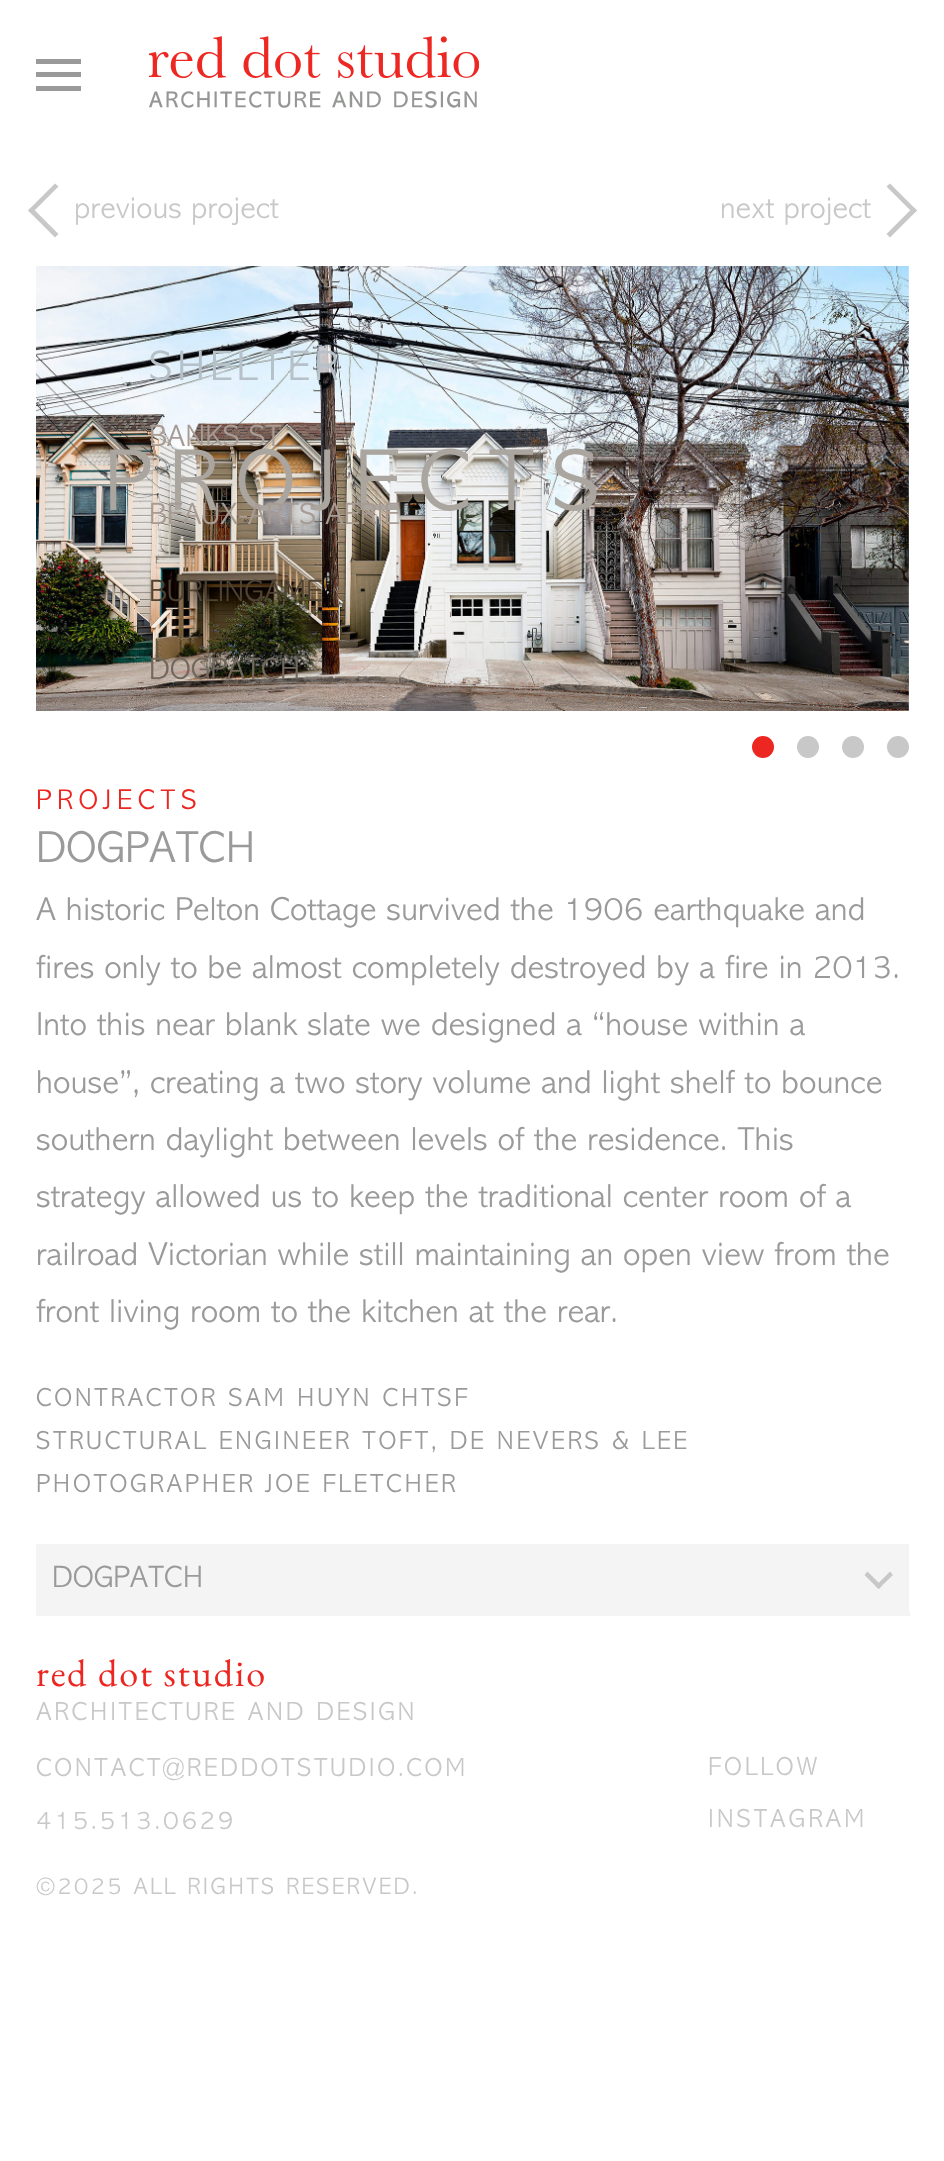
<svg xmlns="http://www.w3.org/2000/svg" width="944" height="2161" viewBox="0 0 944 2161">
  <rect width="100%" height="100%" fill="#ffffff"/>
  <path d="M58.5 234L55 237.5L28 210.5L31.5 207Z" fill="#c8c8c8"/>
  <path d="M58.5 186.5L31.5 213.5L28 210.5L55 183.5Z" fill="#c8c8c8"/>
  <text x="74" y="218" font-family="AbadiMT" font-size="31" fill="#c8c8c8">previous project</text>
  <text x="720" y="218" font-family="AbadiMT" font-size="31" fill="#c8c8c8">next project</text>
  <path d="M886.5 186.5L890 183.5L917 210.5L913.5 213.5Z" fill="#c8c8c8"/>
  <path d="M886.5 234L913.5 207L917 210.5L890 237.5Z" fill="#c8c8c8"/>
  <image x="36" y="266" width="873" height="445" href="img1.png"/>
  <text x="104" y="510" font-family="AbadiMT" font-size="88.75" letter-spacing="17.75" fill="#aaa59e">PROJECTS</text>
  <circle cx="763" cy="747" r="11" fill="#ec2721"/>
  <circle cx="808" cy="747" r="11" fill="#c8c8c8"/>
  <circle cx="853" cy="747" r="11" fill="#c8c8c8"/>
  <circle cx="898" cy="747" r="11" fill="#c8c8c8"/>
  <text x="36" y="809" font-family="AbadiMT" font-size="28.75" letter-spacing="5.75" fill="#ec2721">PROJECTS</text>
  <text x="36" y="862" font-family="AbadiMT" font-size="45" fill="#9a9a9a">DOGPATCH</text>
  <text x="36" y="920" font-family="AbadiMT" font-size="33.5" fill="#9a9a9a">A historic Pelton Cottage survived the 1906 earthquake and</text>
  <text x="36" y="978" font-family="AbadiMT" font-size="33.5" fill="#9a9a9a">fires only to be almost completely destroyed by a fire in 2013.</text>
  <text x="36" y="1035" font-family="AbadiMT" font-size="33.5" fill="#9a9a9a">Into this near blank slate we designed a “house within a</text>
  <text x="36" y="1093" font-family="AbadiMT" font-size="33.5" fill="#9a9a9a">house”, creating a two story volume and light shelf to bounce</text>
  <text x="36" y="1150" font-family="AbadiMT" font-size="33.5" fill="#9a9a9a">southern daylight between levels of the residence. This</text>
  <text x="36" y="1207" font-family="AbadiMT" font-size="33.5" fill="#9a9a9a">strategy allowed us to keep the traditional center room of a</text>
  <text x="36" y="1265" font-family="AbadiMT" font-size="33.5" fill="#9a9a9a">railroad Victorian while still maintaining an open view from the</text>
  <text x="36" y="1322" font-family="AbadiMT" font-size="33.5" fill="#9a9a9a">front living room to the kitchen at the rear.</text>
  <text x="36" y="1406" font-family="AbadiMT" font-size="26.3" letter-spacing="2.65" fill="#9a9a9a">CONTRACTOR SAM HUYN CHTSF</text>
  <text x="36" y="1449" font-family="AbadiMT" font-size="26.3" letter-spacing="2.65" fill="#9a9a9a">STRUCTURAL ENGINEER TOFT, DE NEVERS &amp; LEE</text>
  <text x="36" y="1492" font-family="AbadiMT" font-size="26.3" letter-spacing="2.65" fill="#9a9a9a">PHOTOGRAPHER JOE FLETCHER</text>
  <rect x="36" y="1544" width="873" height="67" fill="#f4f4f4"/>
  <text x="52" y="1587" font-family="AbadiMT" font-size="31" fill="#9a9a9a">DOGPATCH</text>
  <path d="M890 1571.5L893 1575L878.5 1589L875.5 1586Z" fill="#c8c8c8"/>
  <path d="M867.5 1571.5L882 1586L878.5 1589L864.5 1575Z" fill="#c8c8c8"/>
  <rect x="36" y="1611" width="874" height="5" fill="#f4f4f4"/>
  <image x="149" y="36" width="330" height="72" href="img2.png"/>
  <rect x="36" y="72" width="45" height="5" fill="#9a9a9a"/>
  <rect x="36" y="59" width="45" height="5" fill="#9a9a9a"/>
  <rect x="36" y="86" width="45" height="5" fill="#9a9a9a"/>
  <text x="149" y="380" font-family="AbadiMT" font-size="43" letter-spacing="4.25" fill="#b5c0c8">SHELTER</text>
  <text x="149" y="446" font-family="AbadiMT" font-size="31" fill="#a89b94">BANKS ST.</text>
  <text x="149" y="524" font-family="AbadiMT" font-size="31" fill="#a89b94">BEAUX-ARTS AERIE</text>
  <text x="149" y="601" font-family="AbadiMT" font-size="31" fill="#4e4233">BURLINGAME</text>
  <text x="149" y="679" font-family="AbadiMT" font-size="31" fill="#72685d">DOGPATCH</text>
  <text x="36" y="1686" font-family="EB Garamond" font-size="38.25" letter-spacing="1.9" fill="#ec2721">red dot studio</text>
  <text x="36" y="1720" font-family="AbadiMT" font-size="26.3" letter-spacing="2.65" fill="#c8c8c8">ARCHITECTURE AND DESIGN</text>
  <text x="36" y="1776" font-family="AbadiMT" font-size="26.3" letter-spacing="2.65" fill="#c8c8c8">CONTACT@REDDOTSTUDIO.COM</text>
  <text x="36" y="1829" font-family="AbadiMT" font-size="26.3" letter-spacing="2.65" fill="#c8c8c8">415.513.0629</text>
  <text x="36" y="1894" font-family="AbadiMT" font-size="23.9" letter-spacing="2.4" fill="#c8c8c8">©2025 ALL RIGHTS RESERVED.</text>
  <text x="708" y="1775" font-family="AbadiMT" font-size="26.3" letter-spacing="2.9" fill="#c8c8c8">FOLLOW</text>
  <text x="708" y="1827" font-family="AbadiMT" font-size="26.3" letter-spacing="2.9" fill="#c8c8c8">INSTAGRAM</text>
</svg>
